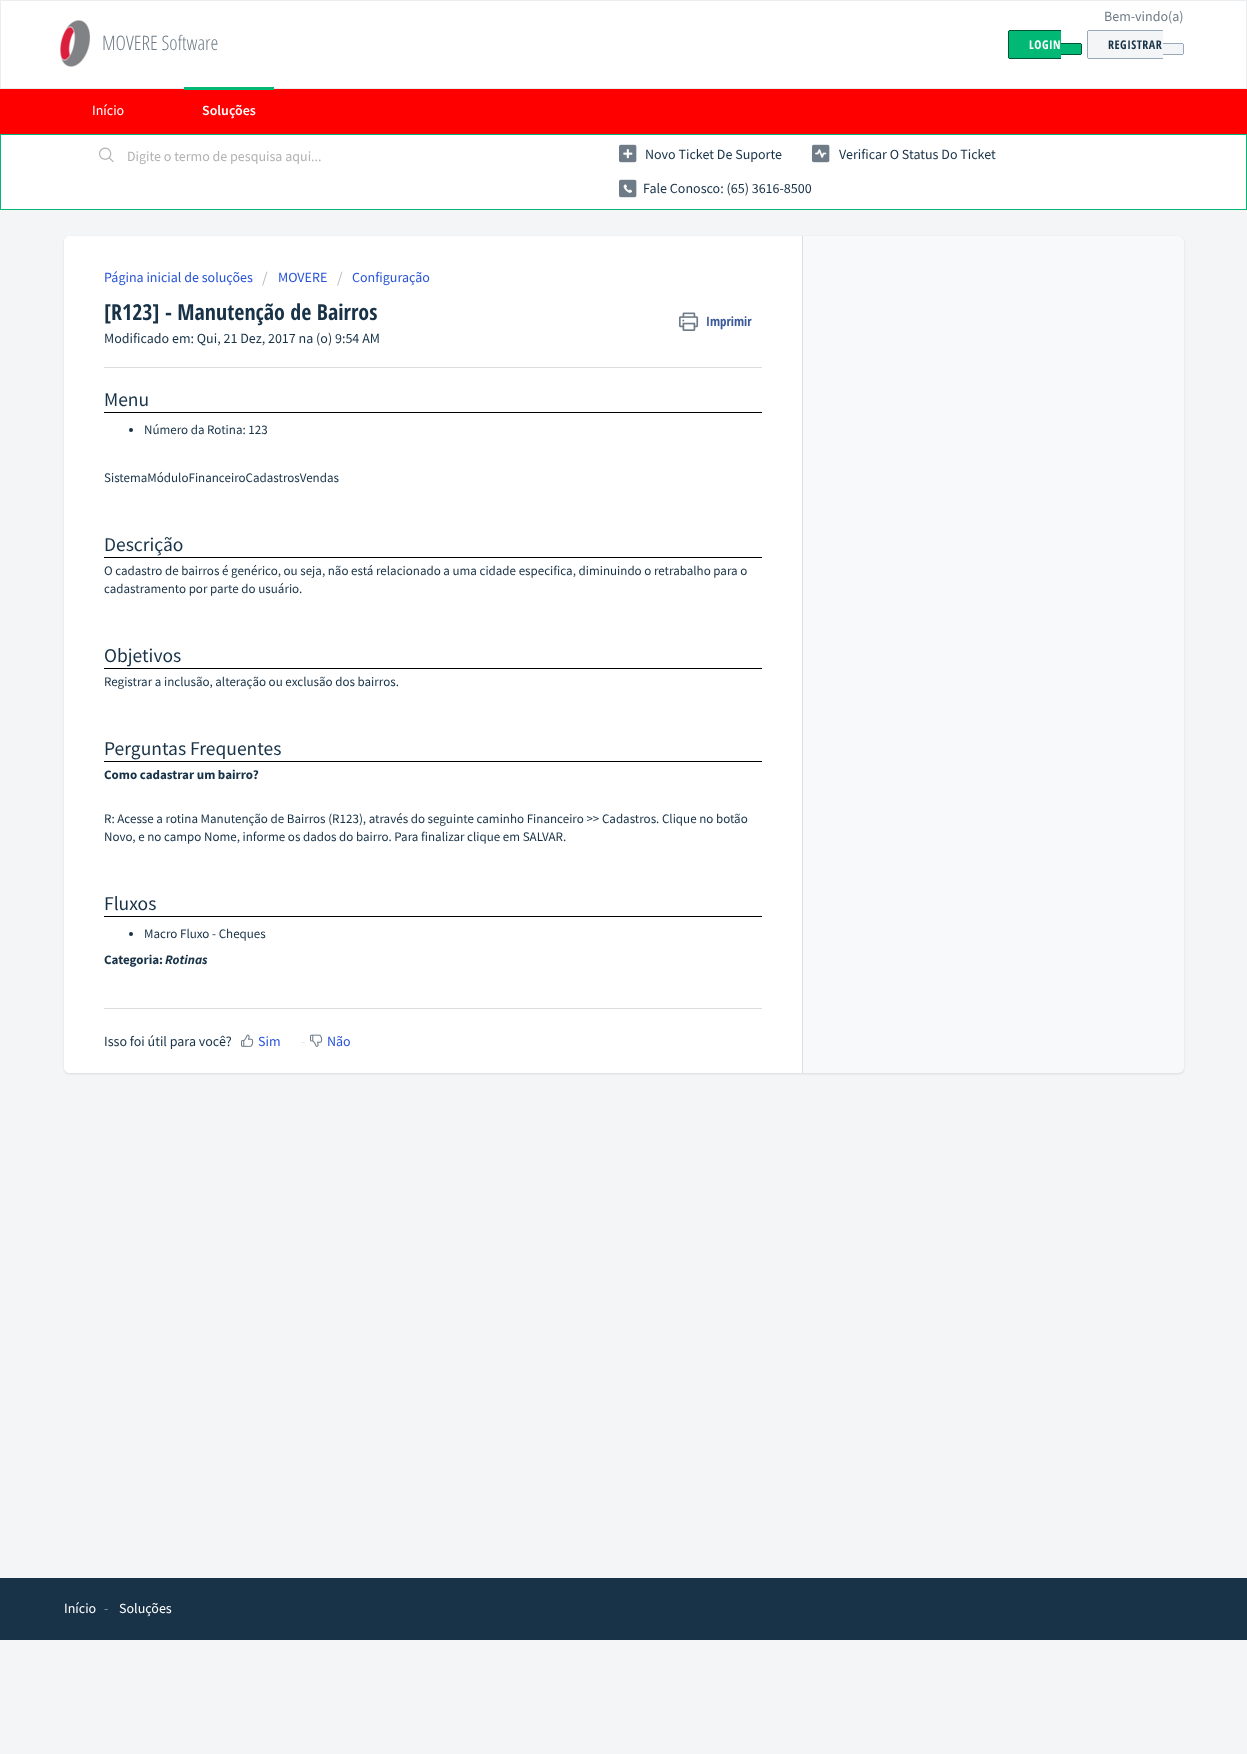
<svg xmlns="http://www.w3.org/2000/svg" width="1247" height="1754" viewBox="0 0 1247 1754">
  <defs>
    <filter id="blur1" x="-50%" y="-200%" width="200%" height="500%"><feGaussianBlur stdDeviation="1"/></filter>
  </defs>
  <rect width="100%" height="100%" fill="#f3f5f7"/>
  <rect x="0.5" y="0.5" width="1246" height="88" fill="#ffffff" stroke="#ebeef0"/>
  <image x="60" y="20" width="31" height="47" href="img1.png"/>
  <text x="102" y="50" font-family="Open Sans Condensed" font-size="20" font-weight="300" fill="#6f7c87">MOVERE Software</text>
  <text x="1104" y="21" font-family="Source Sans Pro" font-size="14" fill="#6f7c87">Bem-vindo(a)</text>
  <path d="M1010 30H1061V59H1010C1009 59 1008 58 1008 57V32C1008 31 1009 30 1010 30Z" fill="#02b875"/>
  <text x="1029" y="49" font-family="Open Sans Condensed" font-size="12" font-weight="bold" letter-spacing="0.5" fill="#ffffff">LOGIN</text>
  <rect x="1009" y="30" width="52" height="1" fill="#015335"/>
  <rect x="1009" y="58" width="52" height="1" fill="#015335"/>
  <rect x="1008" y="31" width="1" height="27" fill="#015335"/>
  <path d="M1061 43H1080C1081 43 1082 44 1082 45V53C1082 54 1081 55 1080 55H1061Z" fill="#02b875"/>
  <rect x="1061" y="43" width="20" height="1" fill="#015335"/>
  <rect x="1081" y="44" width="1" height="10" fill="#015335"/>
  <rect x="1061" y="54" width="20" height="1" fill="#015335"/>
  <path d="M1089 30H1163V59H1089C1088 59 1087 58 1087 57V32C1087 31 1088 30 1089 30Z" fill="#f3f5f7"/>
  <text x="1108" y="49" font-family="Open Sans Condensed" font-size="12" font-weight="bold" letter-spacing="0.5" fill="#183247">REGISTRAR</text>
  <rect x="1088" y="30" width="75" height="1" fill="#97a9ba"/>
  <rect x="1088" y="58" width="75" height="1" fill="#97a9ba"/>
  <rect x="1087" y="31" width="1" height="27" fill="#97a9ba"/>
  <path d="M1163 43H1182C1183 43 1184 44 1184 45V53C1184 54 1183 55 1182 55H1163Z" fill="#f3f5f7"/>
  <rect x="1163" y="43" width="20" height="1" fill="#97a9ba"/>
  <rect x="1183" y="44" width="1" height="10" fill="#97a9ba"/>
  <rect x="1163" y="54" width="20" height="1" fill="#97a9ba"/>
  <rect x="0" y="89" width="1247" height="45" fill="#ff0000"/>
  <text x="92" y="115" font-family="Source Sans Pro" font-size="14" fill="#ffffff">Início</text>
  <rect x="184" y="87" width="90" height="3" fill="#02b875"/>
  <text x="202" y="115" font-family="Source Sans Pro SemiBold" font-size="14" font-weight="600" fill="#ffffff">Soluções</text>
  <rect x="0.5" y="134.5" width="1246" height="75" fill="#ffffff" stroke="#02b875"/>
  <image x="99" y="147" width="15" height="15" href="img2.png"/>
  <text x="127" y="161" font-family="Source Sans Pro" font-size="14" fill="#b2b2b2">Digite o termo de pesquisa aqui...</text>
  <image x="619" y="144" width="18" height="19" href="img3.png"/>
  <text x="645" y="159" font-family="Source Sans Pro" font-size="14" fill="#183247">Novo Ticket De Suporte</text>
  <image x="812" y="144" width="18" height="19" href="img4.png"/>
  <text x="839" y="159" font-family="Source Sans Pro" font-size="14" fill="#183247">Verificar O Status Do Ticket</text>
  <image x="619" y="179" width="18" height="19" href="img5.png"/>
  <text x="643" y="193" font-family="Source Sans Pro" font-size="14" fill="#183247">Fale Conosco: (65) 3616-8500</text>
  <rect x="64" y="237" width="1120" height="837" rx="6" fill="#3f3f44" fill-opacity="0.15" filter="url(#blur1)"/>
  <rect x="64" y="236" width="1120" height="837" rx="6" fill="#f8f9fa"/>
  <path d="M70 236H803V1073H70C66.5 1073 64 1070.5 64 1067V242C64 238.5 66.5 236 70 236Z" fill="#ffffff"/>
  <rect x="802" y="236" width="1" height="837" fill="#dadfe3"/>
  <text x="104" y="282" font-family="Source Sans Pro" font-size="14" fill="#2753d7">Página inicial de soluções</text>
  <text x="262" y="283" font-family="Source Sans Pro" font-size="16" fill="#bbbbbb">/</text>
  <text x="278" y="282" font-family="Source Sans Pro" font-size="14" fill="#2753d7">MOVERE</text>
  <text x="337" y="283" font-family="Source Sans Pro" font-size="16" fill="#bbbbbb">/</text>
  <text x="352" y="282" font-family="Source Sans Pro" font-size="14" fill="#2753d7">Configuração</text>
  <text x="104" y="320" font-family="Open Sans Condensed" font-size="22" font-weight="bold" fill="#183247">[R123] - Manutenção de Bairros</text>
  <image x="679" y="312" width="20" height="19" href="img6.png"/>
  <text x="706" y="326" font-family="Open Sans Condensed" font-size="13" font-weight="bold" fill="#3b5998">Imprimir</text>
  <text x="104" y="343" font-family="Source Sans Pro" font-size="14" fill="#183247">Modificado em: Qui, 21 Dez, 2017 na (o) 9:54 AM</text>
  <rect x="104" y="367" width="658" height="1" fill="#dcdcdc"/>
  <rect x="104" y="412" width="658" height="1" fill="#000000"/>
  <text x="104" y="406" font-family="Source Sans Pro" font-size="19.5" fill="#183247">Menu</text>
  <circle cx="131" cy="430" r="2" fill="#183247"/>
  <text x="144" y="434" font-family="Source Sans Pro" font-size="13" fill="#183247">Número da Rotina: 123</text>
  <text x="104" y="482" font-family="Source Sans Pro" font-size="13" fill="#183247">SistemaMóduloFinanceiroCadastrosVendas</text>
  <rect x="104" y="557" width="658" height="1" fill="#000000"/>
  <text x="104" y="551" font-family="Source Sans Pro" font-size="19.5" fill="#183247">Descrição</text>
  <text x="104" y="575" font-family="Source Sans Pro" font-size="13" fill="#183247">O cadastro de bairros é genérico, ou seja, não está relacionado a uma cidade especifica, diminuindo o retrabalho para o</text>
  <text x="104" y="593" font-family="Source Sans Pro" font-size="13" fill="#183247">cadastramento por parte do usuário.</text>
  <rect x="104" y="668" width="658" height="1" fill="#000000"/>
  <text x="104" y="662" font-family="Source Sans Pro" font-size="19.5" fill="#183247">Objetivos</text>
  <text x="104" y="686" font-family="Source Sans Pro" font-size="13" fill="#183247">Registrar a inclusão, alteração ou exclusão dos bairros.</text>
  <rect x="104" y="761" width="658" height="1" fill="#000000"/>
  <text x="104" y="755" font-family="Source Sans Pro" font-size="19.5" fill="#183247">Perguntas Frequentes</text>
  <text x="104" y="779" font-family="Source Sans Pro" font-size="13" font-weight="bold" fill="#183247">Como cadastrar um bairro?</text>
  <text x="104" y="823" font-family="Source Sans Pro" font-size="13" fill="#183247">R: Acesse a rotina Manutenção de Bairros (R123), através do seguinte caminho Financeiro &gt;&gt; Cadastros. Clique no botão</text>
  <text x="104" y="841" font-family="Source Sans Pro" font-size="13" fill="#183247">Novo, e no campo Nome, informe os dados do bairro. Para finalizar clique em SALVAR.</text>
  <rect x="104" y="916" width="658" height="1" fill="#000000"/>
  <text x="104" y="910" font-family="Source Sans Pro" font-size="19.5" fill="#183247">Fluxos</text>
  <circle cx="131" cy="934" r="2" fill="#183247"/>
  <text x="144" y="938" font-family="Source Sans Pro" font-size="13" fill="#183247">Macro Fluxo - Cheques</text>
  <text x="104" y="964" font-family="Source Sans Pro" font-size="13" font-weight="bold" fill="#183247">Categoria:</text>
  <text x="165" y="964" font-family="Source Sans Pro" font-size="13" font-weight="bold" font-style="italic" fill="#183247">Rotinas</text>
  <rect x="104" y="1008" width="658" height="1" fill="#dcdcdc"/>
  <text x="104" y="1046" font-family="Source Sans Pro" font-size="14" fill="#183247">Isso foi útil para você?</text>
  <image x="241" y="1034" width="13" height="13" href="img7.png"/>
  <text x="258" y="1046" font-family="Source Sans Pro" font-size="14" fill="#2753d7">Sim</text>
  <text x="301" y="1046" font-family="Source Sans Pro" font-size="14" fill="#e5e5e5">-</text>
  <image x="310" y="1034" width="13" height="13" href="img8.png"/>
  <text x="327" y="1046" font-family="Source Sans Pro" font-size="14" fill="#2753d7">Não</text>
  <rect x="0" y="1578" width="1247" height="62" fill="#183247"/>
  <text x="64" y="1613" font-family="Source Sans Pro" font-size="14" fill="#ffffff">Início</text>
  <text x="104" y="1613" font-family="Source Sans Pro" font-size="14" fill="#8c99a3">-</text>
  <text x="119" y="1613" font-family="Source Sans Pro" font-size="14" fill="#ffffff">Soluções</text>
</svg>
